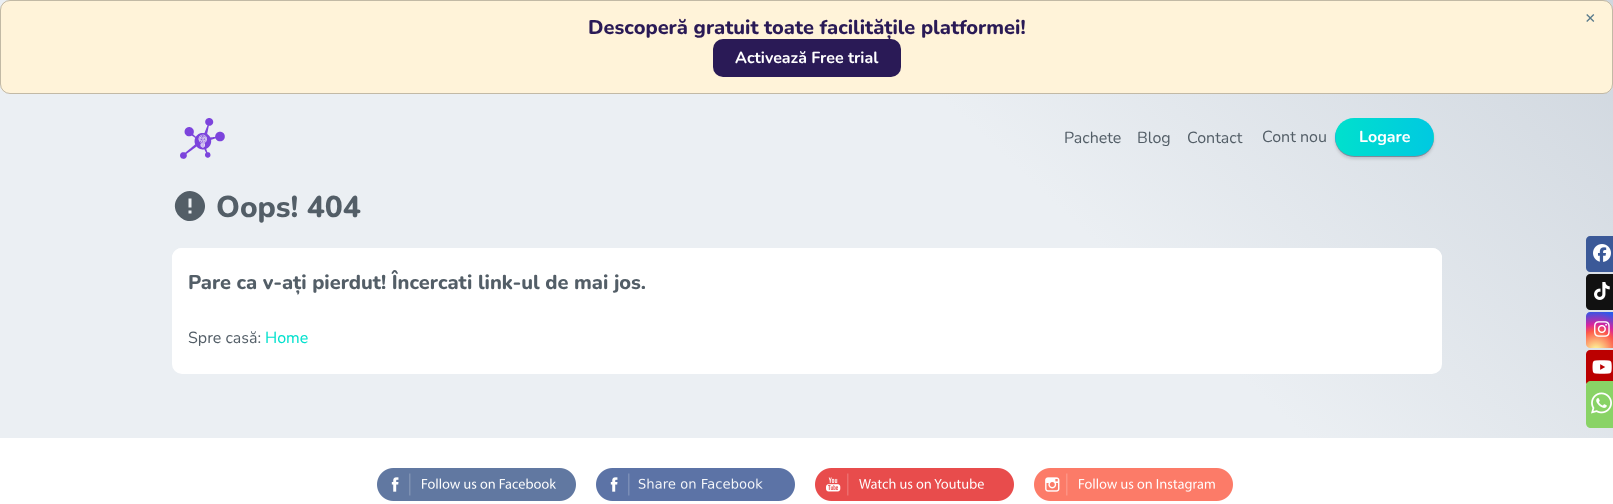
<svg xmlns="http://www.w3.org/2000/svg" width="1613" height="504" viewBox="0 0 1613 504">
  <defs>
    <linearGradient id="g1" gradientUnits="userSpaceOnUse" x1="259" y1="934" x2="1354" y2="-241"><stop offset="0" stop-color="#ebeff3"/><stop offset="0.67" stop-color="#ebeff3"/><stop offset="1" stop-color="#cfd6de"/></linearGradient>
    <filter id="blur1" x="-50%" y="-200%" width="200%" height="500%"><feGaussianBlur stdDeviation="1.5"/></filter>
    <filter id="blur2" x="-50%" y="-200%" width="200%" height="500%"><feGaussianBlur stdDeviation="0.5"/></filter>
    <clipPath id="clip1"><rect x="1335" y="118" width="99" height="38" rx="19"/></clipPath>
    <linearGradient id="g2" gradientUnits="userSpaceOnUse" x1="1239" y1="137" x2="1336" y2="137"><stop offset="0" stop-color="#00e0cd"/><stop offset="1" stop-color="#00c9e1"/></linearGradient>
    <linearGradient id="g3" gradientUnits="userSpaceOnUse" x1="1336" y1="137" x2="1433" y2="137"><stop offset="0" stop-color="#00e0cd"/><stop offset="1" stop-color="#00c9e1"/></linearGradient>
    <linearGradient id="g4" gradientUnits="userSpaceOnUse" x1="1433" y1="137" x2="1530" y2="137"><stop offset="0" stop-color="#00e0cd"/><stop offset="1" stop-color="#00c9e1"/></linearGradient>
    <radialGradient id="g5" gradientUnits="userSpaceOnUse" cx="1596" cy="351" r="45"><stop offset="0" stop-color="#fdf497"/><stop offset="0.05" stop-color="#fdf497"/><stop offset="0.45" stop-color="#fd5949"/><stop offset="0.6" stop-color="#d6249f"/><stop offset="0.9" stop-color="#285aeb"/></radialGradient>
  </defs>
  <rect width="100%" height="100%" fill="#ffffff"/>
  <rect x="0" y="0" width="1613" height="438" fill="url(#g1)"/>
  <rect x="0" y="0" width="1613" height="94" rx="10" fill="#fff3d9"/>
  <rect x="0.5" y="0.5" width="1612" height="93" rx="9.5" fill="none" stroke="#0a0a0a" stroke-opacity="0.25"/>
  <text x="588" y="34" font-family="Nunito" font-size="20" font-weight="800" fill="#2a1a56">Descoperă gratuit toate facilitățile platformei!</text>
  <text x="1585" y="24" font-family="Liberation Sans" font-size="18" fill="#5a7b8c">×</text>
  <rect x="713" y="39" width="188" height="38" rx="10" fill="#2a1a56"/>
  <text x="735" y="63" font-family="Nunito" font-size="16" font-weight="bold" fill="#ffffff">Activează Free trial</text>
  <image x="180" y="118" width="45" height="41" href="img1.png"/>
  <text x="1064" y="143" font-family="Nunito" font-size="16" font-weight="200" fill="#535e67">Pachete</text>
  <text x="1137" y="143" font-family="Nunito" font-size="16" font-weight="200" fill="#535e67">Blog</text>
  <text x="1187" y="143" font-family="Nunito" font-size="16" font-weight="200" fill="#535e67">Contact</text>
  <text x="1262" y="142" font-family="Nunito" font-size="16" font-weight="200" fill="#535e67">Cont nou</text>
  <rect x="1335" y="121" width="99" height="38" rx="19" fill="#0a1726" fill-opacity="0.15" filter="url(#blur1)"/>
  <rect x="1335" y="119" width="99" height="38" rx="19" fill="#0a1726" fill-opacity="0.33" filter="url(#blur2)"/>
  <g clip-path="url(#clip1)">
    <rect x="1335" y="131" width="1" height="12" fill="url(#g2)"/>
    <rect x="1336" y="118" width="97" height="38" fill="url(#g3)"/>
    <rect x="1433" y="131" width="1" height="12" fill="url(#g4)"/>
  </g>
  <text x="1359" y="142" font-family="Nunito" font-size="16" font-weight="bold" fill="#ffffff">Logare</text>
  <path d="M191.5 207.5V198.5H188.5V207.5ZM191.5 213.5V210.5H188.5V213.5ZM179.5 195.5C193.5 181.5 214.5 202.5 200.5 216.5C186.5 230.5 165.5 209.5 179.5 195.5Z" fill="#535e67"/>
  <text x="216" y="217" font-family="Nunito" font-size="30" font-weight="800" fill="#535e67">Oops! 404</text>
  <rect x="172" y="248" width="1270" height="126" rx="10" fill="#ffffff"/>
  <path d="M182 248H1432C1437.5 248 1442 252.5 1442 258V326H172V258C172 252.5 176.5 248 182 248Z" fill="#ffffff"/>
  <text x="188" y="289" font-family="Nunito" font-size="20" font-weight="800" fill="#535e67">Pare ca v-ați pierdut! Încercati link-ul de mai jos.</text>
  <text x="188" y="343" font-family="Nunito" font-size="16" font-weight="200" fill="#535e67">Spre casă:</text>
  <text x="265" y="343" font-family="Nunito" font-size="16" font-weight="200" fill="#00e0cd">Home</text>
  <path d="M1590 236H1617V272H1590C1588 272 1586 270 1586 268V240C1586 238 1588 236 1590 236Z" fill="#3b5998"/>
  <image x="1593" y="244" width="18" height="18" href="img2.png"/>
  <path d="M1590 274H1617V310H1590C1588 310 1586 308 1586 306V278C1586 276 1588 274 1590 274Z" fill="#111111"/>
  <image x="1594" y="282" width="16" height="18" href="img3.png"/>
  <path d="M1590 312H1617V348H1590C1588 348 1586 346 1586 344V316C1586 314 1588 312 1590 312Z" fill="url(#g5)"/>
  <image x="1594" y="321" width="16" height="16" href="img4.png"/>
  <path d="M1590 350H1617V386H1590C1588 386 1586 384 1586 382V354C1586 352 1588 350 1590 350Z" fill="#bb0000"/>
  <image x="1592" y="360" width="20" height="14" href="img5.png"/>
  <path d="M1591 381H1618V428H1591C1588 428 1586 426 1586 423V386C1586 383 1588 381 1591 381Z" fill="#89d366"/>
  <image x="1591" y="392" width="21" height="22" href="img6.png"/>
  <image x="377" y="468" width="199" height="33" href="img7.png"/>
  <image x="596" y="468" width="199" height="33" href="img8.png"/>
  <image x="815" y="468" width="199" height="33" href="img9.png"/>
  <image x="1034" y="468" width="199" height="33" href="img10.png"/>
</svg>
